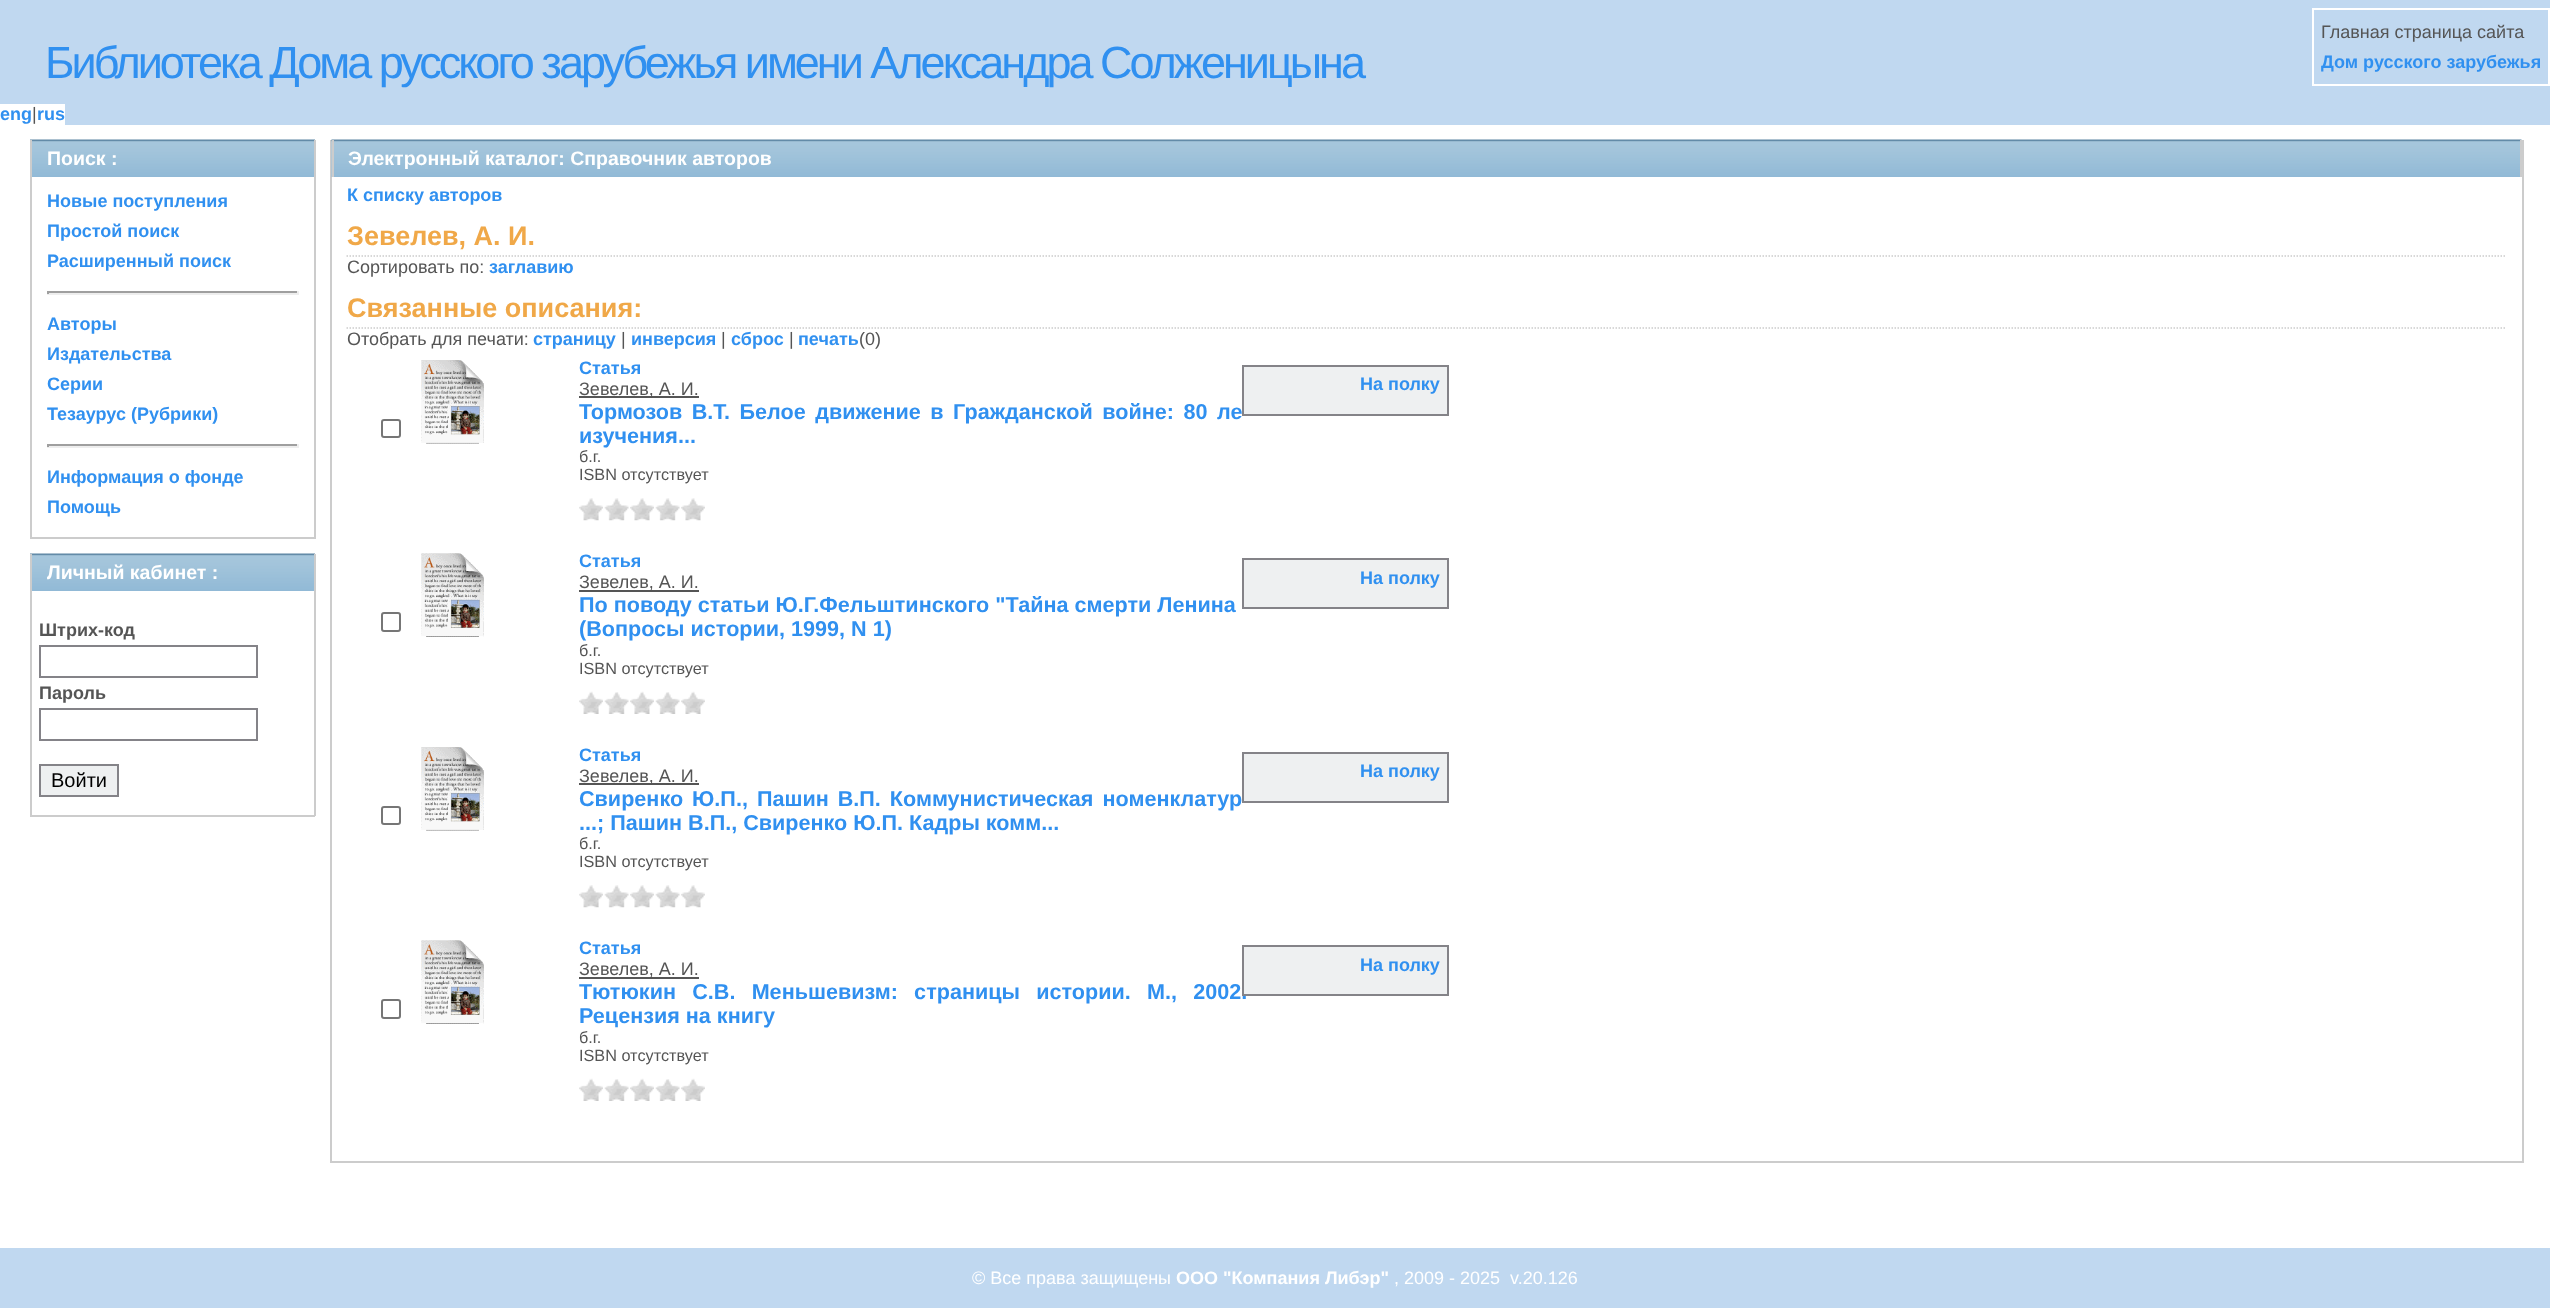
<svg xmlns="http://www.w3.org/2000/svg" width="2550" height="1308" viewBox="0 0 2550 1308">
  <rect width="100%" height="100%" fill="#ffffff"/>
  <rect x="0" y="0" width="2550" height="125" fill="#c0d8f0"/>
  <text x="45" y="78" font-family="Liberation Sans" font-size="45" letter-spacing="-3" fill="#3090f0">Библиотека Дома русского зарубежья имени Александра Солженицына</text>
  <rect x="0" y="104" width="65" height="21" fill="#ffffff"/>
  <text x="0" y="120" font-family="Liberation Sans" font-size="18" font-weight="bold" fill="#3090f0">eng rus</text>
  <text x="32" y="120" font-family="Liberation Sans" font-size="18" fill="#555555">|</text>
  <rect x="2313" y="9" width="236" height="76" fill="none" stroke="#ffffff" stroke-width="2"/>
  <text x="2321" y="38" font-family="Liberation Sans" font-size="18" fill="#555555">Главная страница сайта</text>
  <text x="2321" y="68" font-family="Liberation Sans" font-size="18" font-weight="bold" fill="#3090f0">Дом русского зарубежья</text>
  <image x="30" y="139" width="285" height="38" href="img1.png"/>
  <rect x="314" y="140" width="2" height="399" fill="#cccccc"/>
  <rect x="30" y="140" width="2" height="37" fill="#cccccc"/>
  <text x="47" y="165" font-family="Liberation Sans" font-size="19.5" font-weight="bold" fill="#ffffff">Поиск :</text>
  <rect x="30" y="537" width="285" height="2" fill="#cccccc"/>
  <rect x="30" y="177" width="2" height="362" fill="#cccccc"/>
  <text x="47" y="207" font-family="Liberation Sans" font-size="18" font-weight="bold" fill="#3090f0">Новые поступления</text>
  <text x="47" y="237" font-family="Liberation Sans" font-size="18" font-weight="bold" fill="#3090f0">Простой поиск</text>
  <text x="47" y="267" font-family="Liberation Sans" font-size="18" font-weight="bold" fill="#3090f0">Расширенный поиск</text>
  <rect x="47" y="291" width="252" height="2" fill="#9f9f9f"/>
  <rect x="297" y="291" width="2" height="3" fill="#eeeeee"/>
  <rect x="47" y="293" width="252" height="2" fill="#eeeeee"/>
  <rect x="47" y="291" width="2" height="3" fill="#9f9f9f"/>
  <text x="47" y="330" font-family="Liberation Sans" font-size="18" font-weight="bold" fill="#3090f0">Авторы</text>
  <text x="47" y="360" font-family="Liberation Sans" font-size="18" font-weight="bold" fill="#3090f0">Издательства</text>
  <text x="47" y="390" font-family="Liberation Sans" font-size="18" font-weight="bold" fill="#3090f0">Серии</text>
  <text x="47" y="420" font-family="Liberation Sans" font-size="18" font-weight="bold" fill="#3090f0">Тезаурус (Рубрики)</text>
  <rect x="47" y="444" width="252" height="2" fill="#9f9f9f"/>
  <rect x="297" y="444" width="2" height="3" fill="#eeeeee"/>
  <rect x="47" y="446" width="252" height="2" fill="#eeeeee"/>
  <rect x="47" y="444" width="2" height="3" fill="#9f9f9f"/>
  <text x="47" y="483" font-family="Liberation Sans" font-size="18" font-weight="bold" fill="#3090f0">Информация о фонде</text>
  <text x="47" y="513" font-family="Liberation Sans" font-size="18" font-weight="bold" fill="#3090f0">Помощь</text>
  <image x="30" y="553" width="285" height="38" href="img1.png"/>
  <rect x="314" y="554" width="2" height="262" fill="#cccccc"/>
  <rect x="30" y="554" width="2" height="37" fill="#cccccc"/>
  <text x="47" y="579" font-family="Liberation Sans" font-size="19.5" font-weight="bold" fill="#ffffff">Личный кабинет :</text>
  <rect x="30" y="815" width="285" height="2" fill="#cccccc"/>
  <rect x="30" y="591" width="2" height="225" fill="#cccccc"/>
  <text x="39" y="636" font-family="Liberation Sans" font-size="18" font-weight="bold" fill="#555555">Штрих-код</text>
  <rect x="40" y="646" width="217" height="31" fill="none" stroke="#848388" stroke-width="2"/>
  <text x="39" y="699" font-family="Liberation Sans" font-size="18" font-weight="bold" fill="#555555">Пароль</text>
  <rect x="40" y="709" width="217" height="31" fill="none" stroke="#848388" stroke-width="2"/>
  <rect x="40" y="765" width="78" height="31" fill="#eef0f1" stroke="#848388" stroke-width="2"/>
  <text x="51" y="787" font-family="Liberation Sans" font-size="20" fill="#000000">Войти</text>
  <rect x="2522" y="140" width="2" height="1023" fill="#cccccc"/>
  <rect x="330" y="1161" width="2193" height="2" fill="#cccccc"/>
  <rect x="330" y="140" width="2" height="1023" fill="#cccccc"/>
  <image x="331" y="139" width="2191" height="38" href="img2.png"/>
  <rect x="2520" y="140" width="2" height="37" fill="#cccccc"/>
  <rect x="332" y="140" width="2" height="37" fill="#cccccc"/>
  <text x="348" y="165" font-family="Liberation Sans" font-size="19.5" font-weight="bold" fill="#ffffff">Электронный каталог: Справочник авторов</text>
  <text x="347" y="201" font-family="Liberation Sans" font-size="18" font-weight="bold" fill="#3090f0">К списку авторов</text>
  <path d="M346.5 256H2506.5" fill="none" stroke="#cccccc" stroke-width="1.5" stroke-dasharray="1.5 1.5"/>
  <text x="347" y="245" font-family="Liberation Sans" font-size="27" font-weight="bold" fill="#f0a848">Зевелев, А. И.</text>
  <text x="347" y="273" font-family="Liberation Sans" font-size="18" fill="#555555">Сортировать по:</text>
  <text x="489" y="273" font-family="Liberation Sans" font-size="18" font-weight="bold" fill="#3090f0">заглавию</text>
  <path d="M346.5 328H2506.5" fill="none" stroke="#cccccc" stroke-width="1.5" stroke-dasharray="1.5 1.5"/>
  <text x="347" y="317" font-family="Liberation Sans" font-size="27" font-weight="bold" fill="#f0a848">Связанные описания:</text>
  <text x="347" y="345" font-family="Liberation Sans" font-size="18" fill="#555555">Отобрать для печати:</text>
  <text x="533" y="345" font-family="Liberation Sans" font-size="18" font-weight="bold" fill="#3090f0">страницу</text>
  <text x="621" y="345" font-family="Liberation Sans" font-size="18" fill="#555555">|</text>
  <text x="631" y="345" font-family="Liberation Sans" font-size="18" font-weight="bold" fill="#3090f0">инверсия</text>
  <text x="721" y="345" font-family="Liberation Sans" font-size="18" fill="#555555">|</text>
  <text x="731" y="345" font-family="Liberation Sans" font-size="18" font-weight="bold" fill="#3090f0">сброс</text>
  <text x="789" y="345" font-family="Liberation Sans" font-size="18" fill="#555555">|</text>
  <text x="798" y="345" font-family="Liberation Sans" font-size="18" font-weight="bold" fill="#3090f0">печать</text>
  <text x="859" y="345" font-family="Liberation Sans" font-size="18" fill="#555555">(0)</text>
  <rect x="382" y="420" width="18" height="17" rx="2" fill="none" stroke="#767676" stroke-width="2"/>
  <image x="421" y="360" width="63" height="84" href="img3.png"/>
  <text x="579" y="374" font-family="Liberation Sans" font-size="18" font-weight="bold" fill="#3090f0">Статья</text>
  <rect x="579" y="396" width="120" height="2" fill="#555555"/>
  <text x="579" y="395" font-family="Liberation Sans" font-size="18" fill="#555555">Зевелев, А. И.</text>
  <text x="579" y="419" word-spacing="3.5" font-family="Liberation Sans" font-size="21.6" font-weight="bold" fill="#3090f0">Тормозов В.Т. Белое движение в Гражданской войне: 80 ле</text>
  <text x="579" y="443" font-family="Liberation Sans" font-size="21.6" font-weight="bold" fill="#3090f0">изучения...</text>
  <text x="579" y="462" font-family="Liberation Sans" font-size="16.25" fill="#555555">б.г.</text>
  <text x="579" y="480" font-family="Liberation Sans" font-size="16.25" fill="#555555">ISBN отсутствует</text>
  <image x="579" y="498" width="24" height="23" href="img4.png"/>
  <image x="604" y="498" width="25" height="23" href="img5.png"/>
  <image x="630" y="498" width="24" height="23" href="img6.png"/>
  <image x="655" y="498" width="25" height="23" href="img5.png"/>
  <image x="681" y="498" width="24" height="23" href="img6.png"/>
  <rect x="1243" y="366" width="205" height="49" fill="#eef0f1" stroke="#848388" stroke-width="2"/>
  <text x="1360" y="390" font-family="Liberation Sans" font-size="18" font-weight="bold" fill="#3090f0">На полку</text>
  <rect x="382" y="613" width="18" height="18" rx="2" fill="none" stroke="#767676" stroke-width="2"/>
  <image x="421" y="553" width="63" height="84" href="img7.png"/>
  <text x="579" y="567" font-family="Liberation Sans" font-size="18" font-weight="bold" fill="#3090f0">Статья</text>
  <rect x="579" y="590" width="120" height="2" fill="#555555"/>
  <text x="579" y="588" font-family="Liberation Sans" font-size="18" fill="#555555">Зевелев, А. И.</text>
  <text x="579" y="612" font-family="Liberation Sans" font-size="21.6" font-weight="bold" fill="#3090f0">По поводу статьи Ю.Г.Фельштинского "Тайна смерти Ленина</text>
  <text x="579" y="636" font-family="Liberation Sans" font-size="21.6" font-weight="bold" fill="#3090f0">(Вопросы истории, 1999, N 1)</text>
  <text x="579" y="656" font-family="Liberation Sans" font-size="16.25" fill="#555555">б.г.</text>
  <text x="579" y="674" font-family="Liberation Sans" font-size="16.25" fill="#555555">ISBN отсутствует</text>
  <image x="579" y="691" width="24" height="23" href="img8.png"/>
  <image x="604" y="692" width="25" height="22" href="img9.png"/>
  <image x="630" y="691" width="24" height="23" href="img10.png"/>
  <image x="655" y="692" width="25" height="22" href="img9.png"/>
  <image x="681" y="691" width="24" height="23" href="img10.png"/>
  <rect x="1243" y="559" width="205" height="49" fill="#eef0f1" stroke="#848388" stroke-width="2"/>
  <text x="1360" y="584" font-family="Liberation Sans" font-size="18" font-weight="bold" fill="#3090f0">На полку</text>
  <rect x="382" y="807" width="18" height="17" rx="2" fill="none" stroke="#767676" stroke-width="2"/>
  <image x="421" y="747" width="63" height="84" href="img3.png"/>
  <text x="579" y="761" font-family="Liberation Sans" font-size="18" font-weight="bold" fill="#3090f0">Статья</text>
  <rect x="579" y="783" width="120" height="2" fill="#555555"/>
  <text x="579" y="782" font-family="Liberation Sans" font-size="18" fill="#555555">Зевелев, А. И.</text>
  <text x="579" y="806" word-spacing="3" font-family="Liberation Sans" font-size="21.6" font-weight="bold" fill="#3090f0">Свиренко Ю.П., Пашин В.П. Коммунистическая номенклатур</text>
  <text x="579" y="830" font-family="Liberation Sans" font-size="21.6" font-weight="bold" fill="#3090f0">...; Пашин В.П., Свиренко Ю.П. Кадры комм...</text>
  <text x="579" y="849" font-family="Liberation Sans" font-size="16.25" fill="#555555">б.г.</text>
  <text x="579" y="867" font-family="Liberation Sans" font-size="16.25" fill="#555555">ISBN отсутствует</text>
  <image x="579" y="885" width="24" height="23" href="img4.png"/>
  <image x="604" y="885" width="25" height="23" href="img5.png"/>
  <image x="630" y="885" width="24" height="23" href="img6.png"/>
  <image x="655" y="885" width="25" height="23" href="img5.png"/>
  <image x="681" y="885" width="24" height="23" href="img6.png"/>
  <rect x="1243" y="753" width="205" height="49" fill="#eef0f1" stroke="#848388" stroke-width="2"/>
  <text x="1360" y="777" font-family="Liberation Sans" font-size="18" font-weight="bold" fill="#3090f0">На полку</text>
  <rect x="382" y="1000" width="18" height="18" rx="2" fill="none" stroke="#767676" stroke-width="2"/>
  <image x="421" y="940" width="63" height="84" href="img7.png"/>
  <text x="579" y="954" font-family="Liberation Sans" font-size="18" font-weight="bold" fill="#3090f0">Статья</text>
  <rect x="579" y="977" width="120" height="2" fill="#555555"/>
  <text x="579" y="975" font-family="Liberation Sans" font-size="18" fill="#555555">Зевелев, А. И.</text>
  <text x="579" y="999" word-spacing="10.25" font-family="Liberation Sans" font-size="21.6" font-weight="bold" fill="#3090f0">Тютюкин С.В. Меньшевизм: страницы истории. М., 2002.</text>
  <text x="579" y="1023" font-family="Liberation Sans" font-size="21.6" font-weight="bold" fill="#3090f0">Рецензия на книгу</text>
  <text x="579" y="1043" font-family="Liberation Sans" font-size="16.25" fill="#555555">б.г.</text>
  <text x="579" y="1061" font-family="Liberation Sans" font-size="16.25" fill="#555555">ISBN отсутствует</text>
  <image x="579" y="1078" width="24" height="23" href="img8.png"/>
  <image x="604" y="1079" width="25" height="22" href="img9.png"/>
  <image x="630" y="1078" width="24" height="23" href="img10.png"/>
  <image x="655" y="1079" width="25" height="22" href="img9.png"/>
  <image x="681" y="1078" width="24" height="23" href="img10.png"/>
  <rect x="1243" y="946" width="205" height="49" fill="#eef0f1" stroke="#848388" stroke-width="2"/>
  <text x="1360" y="971" font-family="Liberation Sans" font-size="18" font-weight="bold" fill="#3090f0">На полку</text>
  <rect x="0" y="1248" width="2550" height="60" fill="#c0d8f0"/>
  <text x="972" y="1284" font-family="Liberation Sans" font-size="18" fill="#ffffff">© Все права защищены</text>
  <text x="1176" y="1284" font-family="Liberation Sans" font-size="18" font-weight="bold" fill="#ffffff">ООО "Компания Либэр"</text>
  <text x="1394" y="1284" font-family="Liberation Sans" font-size="18" fill="#ffffff" xml:space="preserve">, 2009 - 2025  v.20.126</text>
</svg>
